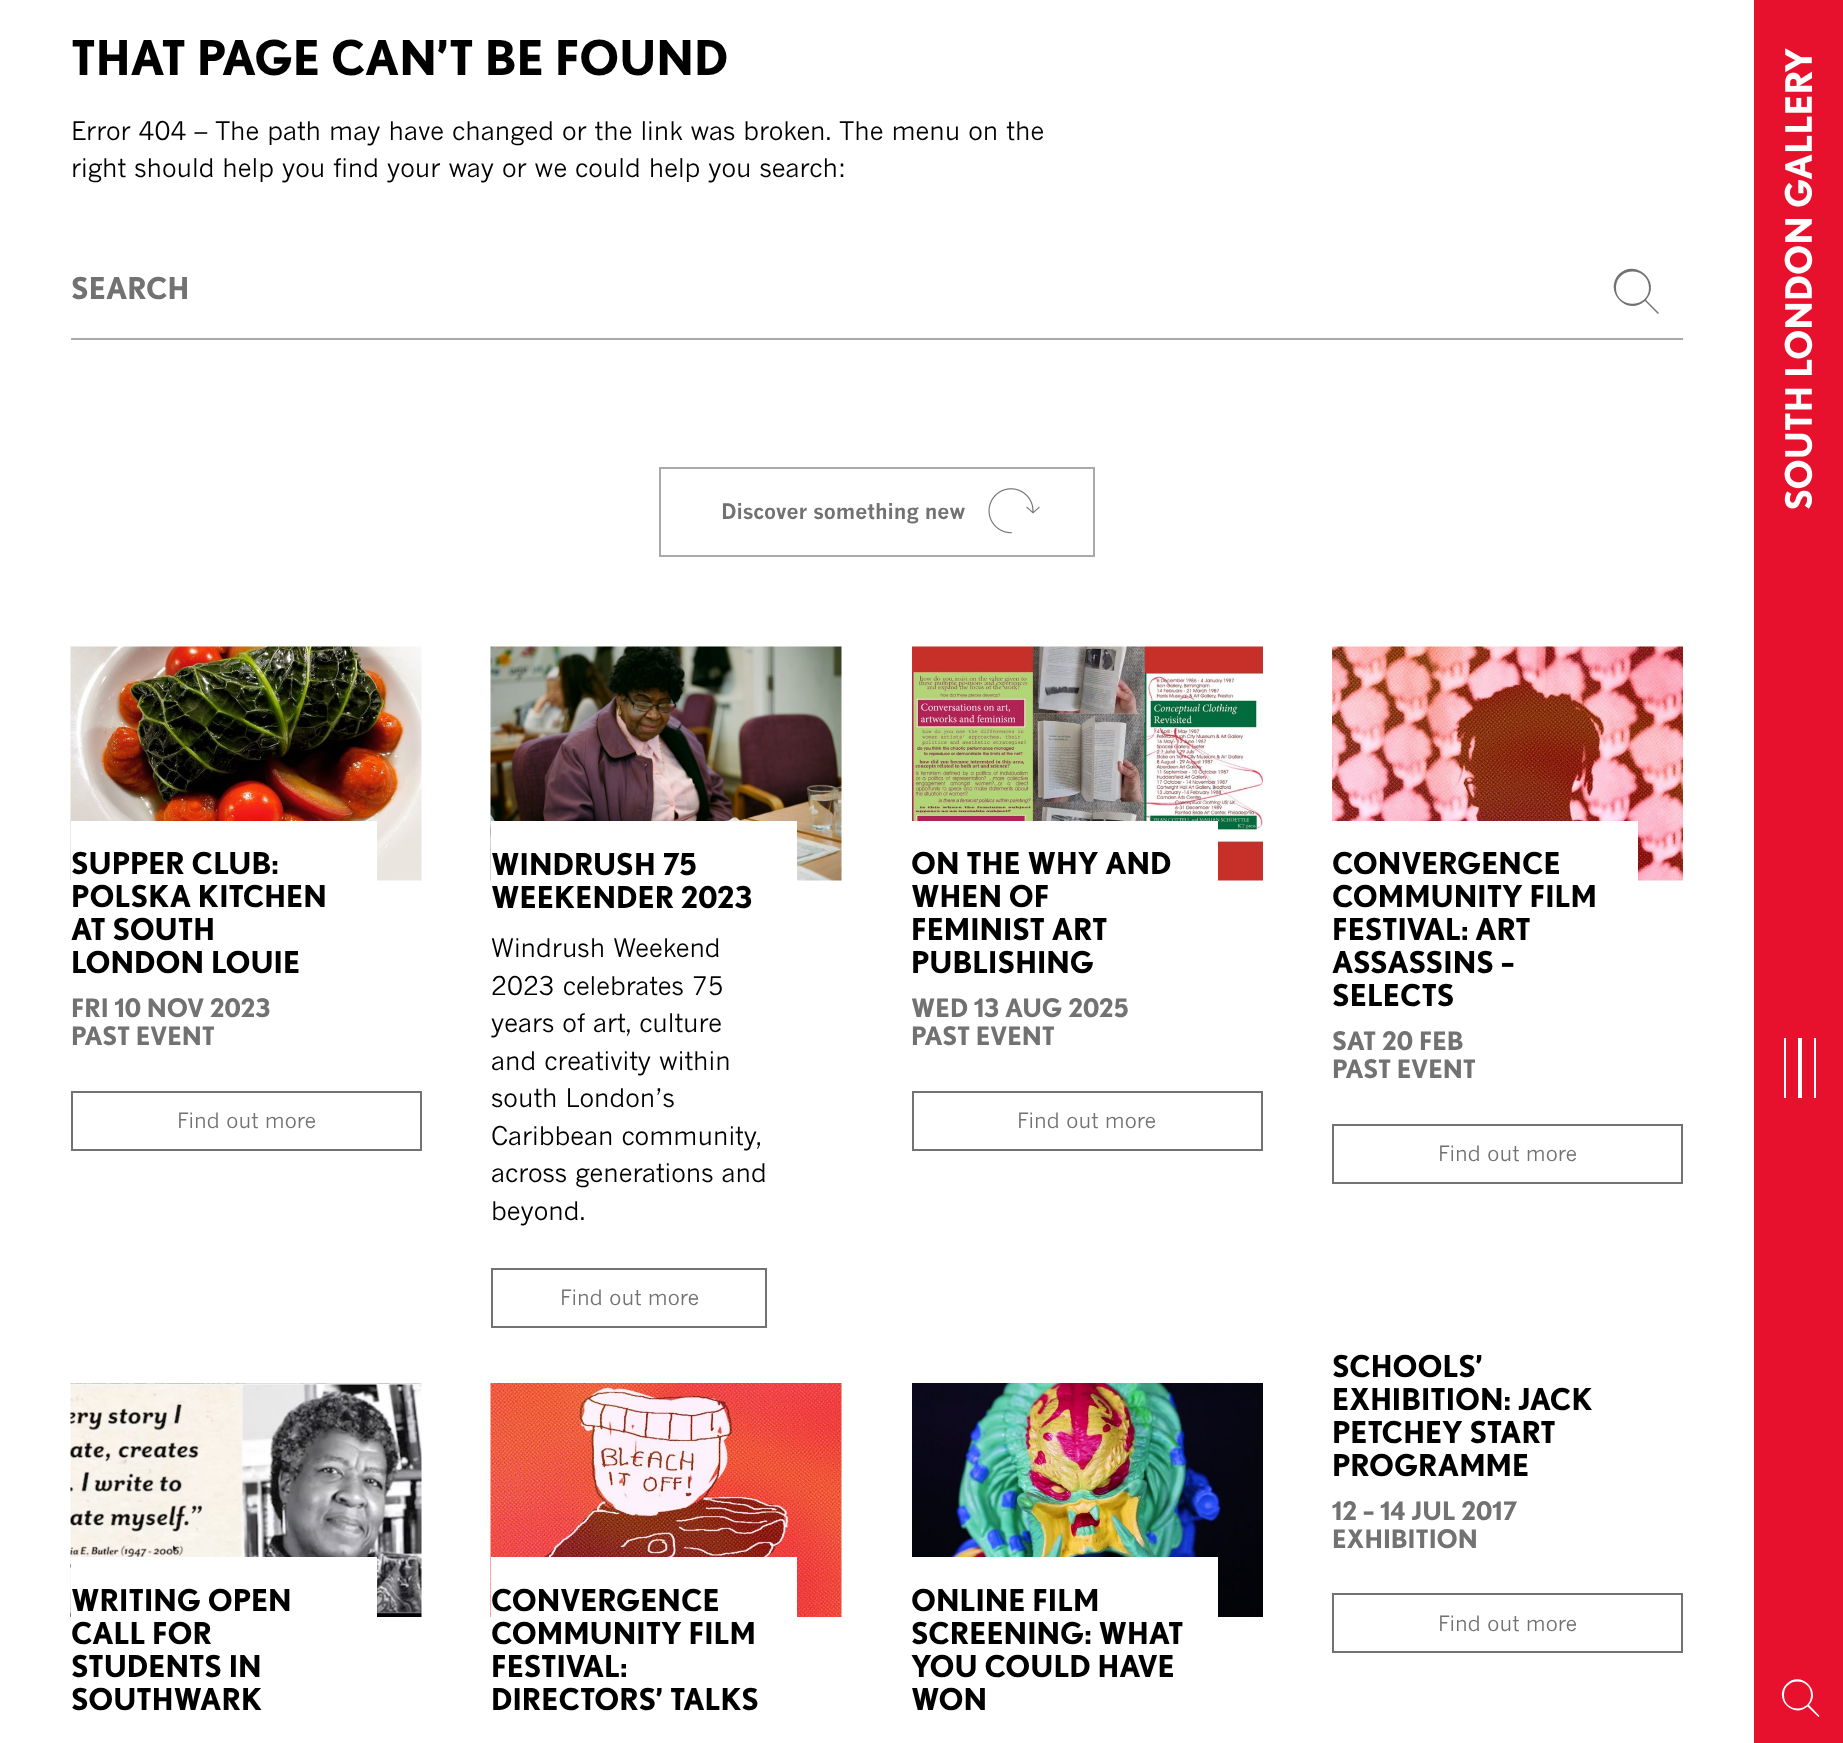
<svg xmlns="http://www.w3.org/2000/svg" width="1843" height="1743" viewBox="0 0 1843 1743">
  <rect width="100%" height="100%" fill="#ffffff"/>
  <rect x="1754" y="0" width="89" height="1743" fill="#e8112d"/>
  <text x="71" y="75" font-family="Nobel" font-size="48" font-weight="bold" fill="#000000">THAT PAGE CAN’T BE FOUND</text>
  <text x="71" y="140" font-family="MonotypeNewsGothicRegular" font-size="25.5" fill="#000000">Error 404 – The path may have changed or the link was broken. The menu on the</text>
  <text x="71" y="177" font-family="MonotypeNewsGothicRegular" font-size="25.5" fill="#000000">right should help you find your way or we could help you search:</text>
  <rect x="71" y="338" width="1612" height="2" fill="#aaaaaa"/>
  <text x="71" y="299" font-family="Nobel" font-size="30" font-weight="bold" fill="#727272">SEARCH</text>
  <path d="M1659 313L1646 300C1662 282 1636 258 1619 274C1603 291 1627 317 1645 301L1658 314ZM1616 288C1616 266 1649 266 1649 288C1649 309 1616 309 1616 288Z" fill="#727272"/>
  <rect x="660" y="468" width="434" height="88" fill="none" stroke="#aaaaaa" stroke-width="2"/>
  <text x="721" y="519" font-family="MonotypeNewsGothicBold" font-size="21" font-weight="bold" fill="#727272">Discover something new</text>
  <image x="988" y="488" width="52" height="46" href="img1.png"/>
  <image x="70" y="646" width="352" height="235" href="img2.png"/>
  <rect x="71" y="821" width="306" height="60" fill="#ffffff"/>
  <text x="71" y="874" font-family="Nobel" font-size="30" font-weight="bold" fill="#000000">SUPPER CLUB:</text>
  <text x="71" y="907" font-family="Nobel" font-size="30" font-weight="bold" fill="#000000">POLSKA KITCHEN</text>
  <text x="71" y="940" font-family="Nobel" font-size="30" font-weight="bold" fill="#000000">AT SOUTH</text>
  <text x="71" y="973" font-family="Nobel" font-size="30" font-weight="bold" fill="#000000">LONDON LOUIE</text>
  <text x="71" y="1017" font-family="Nobel" font-size="25.5" font-weight="bold" fill="#727272">FRI 10 NOV 2023</text>
  <text x="71" y="1045" font-family="Nobel" font-size="25.5" font-weight="bold" fill="#727272">PAST EVENT</text>
  <rect x="72" y="1092" width="349" height="58" fill="none" stroke="#727272" stroke-width="2"/>
  <text x="177" y="1128" font-family="MonotypeNewsGothicRegular" font-size="21" fill="#727272">Find out more</text>
  <image x="490" y="646" width="352" height="235" href="img3.png"/>
  <rect x="491" y="821" width="306" height="60" fill="#ffffff"/>
  <text x="491" y="875" font-family="Nobel" font-size="30" font-weight="bold" fill="#000000">WINDRUSH 75</text>
  <text x="491" y="908" font-family="Nobel" font-size="30" font-weight="bold" fill="#000000">WEEKENDER 2023</text>
  <text x="491" y="957" font-family="MonotypeNewsGothicRegular" font-size="25.5" fill="#000000">Windrush Weekend</text>
  <text x="491" y="995" font-family="MonotypeNewsGothicRegular" font-size="25.5" fill="#000000">2023 celebrates 75</text>
  <text x="491" y="1032" font-family="MonotypeNewsGothicRegular" font-size="25.5" fill="#000000">years of art, culture</text>
  <text x="491" y="1070" font-family="MonotypeNewsGothicRegular" font-size="25.5" fill="#000000">and creativity within</text>
  <text x="491" y="1107" font-family="MonotypeNewsGothicRegular" font-size="25.5" fill="#000000">south London’s</text>
  <text x="491" y="1145" font-family="MonotypeNewsGothicRegular" font-size="25.5" fill="#000000">Caribbean community,</text>
  <text x="491" y="1182" font-family="MonotypeNewsGothicRegular" font-size="25.5" fill="#000000">across generations and</text>
  <text x="491" y="1220" font-family="MonotypeNewsGothicRegular" font-size="25.5" fill="#000000">beyond.</text>
  <rect x="492" y="1269" width="274" height="58" fill="none" stroke="#727272" stroke-width="2"/>
  <text x="560" y="1305" font-family="MonotypeNewsGothicRegular" font-size="21" fill="#727272">Find out more</text>
  <image x="912" y="646" width="351" height="235" href="img4.png"/>
  <rect x="912" y="821" width="306" height="60" fill="#ffffff"/>
  <text x="911" y="874" font-family="Nobel" font-size="30" font-weight="bold" fill="#000000">ON THE WHY AND</text>
  <text x="911" y="907" font-family="Nobel" font-size="30" font-weight="bold" fill="#000000">WHEN OF</text>
  <text x="911" y="940" font-family="Nobel" font-size="30" font-weight="bold" fill="#000000">FEMINIST ART</text>
  <text x="911" y="973" font-family="Nobel" font-size="30" font-weight="bold" fill="#000000">PUBLISHING</text>
  <text x="911" y="1017" font-family="Nobel" font-size="25.5" font-weight="bold" fill="#727272">WED 13 AUG 2025</text>
  <text x="911" y="1045" font-family="Nobel" font-size="25.5" font-weight="bold" fill="#727272">PAST EVENT</text>
  <rect x="913" y="1092" width="349" height="58" fill="none" stroke="#727272" stroke-width="2"/>
  <text x="1017" y="1128" font-family="MonotypeNewsGothicRegular" font-size="21" fill="#727272">Find out more</text>
  <image x="1332" y="646" width="351" height="235" href="img5.png"/>
  <rect x="1332" y="821" width="306" height="60" fill="#ffffff"/>
  <text x="1332" y="874" font-family="Nobel" font-size="30" font-weight="bold" fill="#000000">CONVERGENCE</text>
  <text x="1332" y="907" font-family="Nobel" font-size="30" font-weight="bold" fill="#000000">COMMUNITY FILM</text>
  <text x="1332" y="940" font-family="Nobel" font-size="30" font-weight="bold" fill="#000000">FESTIVAL: ART</text>
  <text x="1332" y="973" font-family="Nobel" font-size="30" font-weight="bold" fill="#000000">ASSASSINS –</text>
  <text x="1332" y="1006" font-family="Nobel" font-size="30" font-weight="bold" fill="#000000">SELECTS</text>
  <text x="1332" y="1050" font-family="Nobel" font-size="25.5" font-weight="bold" fill="#727272">SAT 20 FEB</text>
  <text x="1332" y="1078" font-family="Nobel" font-size="25.5" font-weight="bold" fill="#727272">PAST EVENT</text>
  <rect x="1333" y="1125" width="349" height="58" fill="none" stroke="#727272" stroke-width="2"/>
  <text x="1438" y="1161" font-family="MonotypeNewsGothicRegular" font-size="21" fill="#727272">Find out more</text>
  <text x="1332" y="1377" font-family="Nobel" font-size="30" font-weight="bold" fill="#000000">SCHOOLS’</text>
  <text x="1332" y="1410" font-family="Nobel" font-size="30" font-weight="bold" fill="#000000">EXHIBITION: JACK</text>
  <text x="1332" y="1443" font-family="Nobel" font-size="30" font-weight="bold" fill="#000000">PETCHEY START</text>
  <text x="1332" y="1476" font-family="Nobel" font-size="30" font-weight="bold" fill="#000000">PROGRAMME</text>
  <text x="1332" y="1520" font-family="Nobel" font-size="25.5" font-weight="bold" fill="#727272">12 – 14 JUL 2017</text>
  <text x="1332" y="1548" font-family="Nobel" font-size="25.5" font-weight="bold" fill="#727272">EXHIBITION</text>
  <rect x="1333" y="1594" width="349" height="58" fill="none" stroke="#727272" stroke-width="2"/>
  <text x="1438" y="1631" font-family="MonotypeNewsGothicRegular" font-size="21" fill="#727272">Find out more</text>
  <image x="70" y="1383" width="352" height="234" href="img6.png"/>
  <rect x="71" y="1557" width="306" height="60" fill="#ffffff"/>
  <text x="71" y="1611" font-family="Nobel" font-size="30" font-weight="bold" fill="#000000">WRITING OPEN</text>
  <text x="71" y="1644" font-family="Nobel" font-size="30" font-weight="bold" fill="#000000">CALL FOR</text>
  <text x="71" y="1677" font-family="Nobel" font-size="30" font-weight="bold" fill="#000000">STUDENTS IN</text>
  <text x="71" y="1710" font-family="Nobel" font-size="30" font-weight="bold" fill="#000000">SOUTHWARK</text>
  <image x="490" y="1383" width="352" height="234" href="img7.png"/>
  <rect x="491" y="1557" width="306" height="60" fill="#ffffff"/>
  <text x="491" y="1611" font-family="Nobel" font-size="30" font-weight="bold" fill="#000000">CONVERGENCE</text>
  <text x="491" y="1644" font-family="Nobel" font-size="30" font-weight="bold" fill="#000000">COMMUNITY FILM</text>
  <text x="491" y="1677" font-family="Nobel" font-size="30" font-weight="bold" fill="#000000">FESTIVAL:</text>
  <text x="491" y="1710" font-family="Nobel" font-size="30" font-weight="bold" fill="#000000">DIRECTORS’ TALKS</text>
  <image x="912" y="1383" width="351" height="234" href="img8.png"/>
  <rect x="912" y="1557" width="306" height="60" fill="#ffffff"/>
  <text x="911" y="1611" font-family="Nobel" font-size="30" font-weight="bold" fill="#000000">ONLINE FILM</text>
  <text x="911" y="1644" font-family="Nobel" font-size="30" font-weight="bold" fill="#000000">SCREENING: WHAT</text>
  <text x="911" y="1677" font-family="Nobel" font-size="30" font-weight="bold" fill="#000000">YOU COULD HAVE</text>
  <text x="911" y="1710" font-family="Nobel" font-size="30" font-weight="bold" fill="#000000">WON</text>
  <image x="1784" y="48" width="29" height="461" href="img9.png"/>
  <rect x="1798" y="1038" width="4" height="60" fill="#ffffff"/>
  <rect x="1784" y="1038" width="2" height="60" fill="#ffffff"/>
  <rect x="1814" y="1038" width="2" height="60" fill="#ffffff"/>
  <path d="M1819.5 1716L1809 1705C1822 1690.5 1800.5 1670 1786.5 1684C1772.5 1698 1793 1719.5 1807.5 1706.5L1818.5 1717ZM1784 1695C1784 1677 1811 1677 1811 1695C1811 1713 1784 1713 1784 1695Z" fill="#ffffff"/>
</svg>
